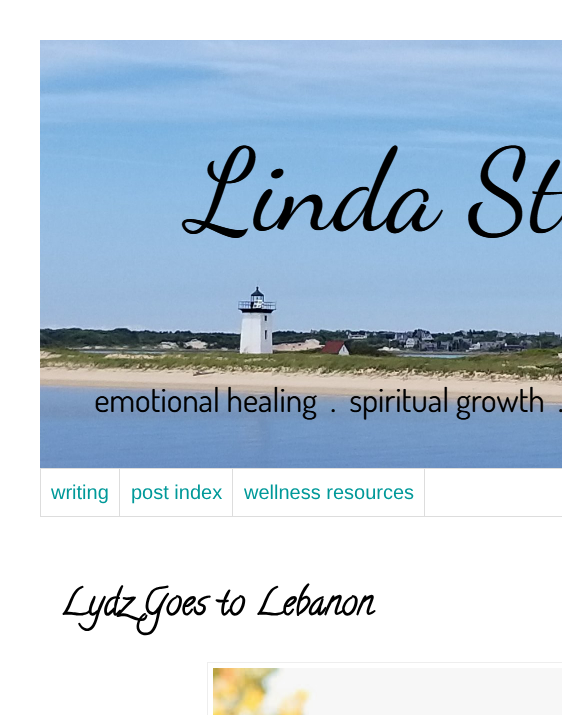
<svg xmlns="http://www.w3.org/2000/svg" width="562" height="715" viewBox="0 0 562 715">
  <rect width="100%" height="100%" fill="#ffffff"/>
  <image x="40" y="40" width="522" height="428" href="img1.png"/>
  <rect x="40.5" y="468.5" width="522" height="48" fill="none" stroke="#dddddd"/>
  <rect x="119" y="469" width="1" height="47" fill="#dddddd"/>
  <text x="51" y="499" font-family="Liberation Sans" font-size="20" fill="#009999">writing</text>
  <rect x="232" y="469" width="1" height="47" fill="#dddddd"/>
  <text x="131" y="499" font-family="Liberation Sans" font-size="20" fill="#009999">post index</text>
  <rect x="424" y="469" width="1" height="47" fill="#dddddd"/>
  <text x="244" y="499" font-family="Liberation Sans" font-size="20" fill="#009999">wellness resources</text>
  <text x="60" y="614" font-family="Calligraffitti" font-size="36" font-weight="bold" fill="#000000">Lydz Goes to Lebanon</text>
  <rect x="207.5" y="662.5" width="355" height="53" fill="none" stroke="#eeeeee"/>
  <image x="213" y="668" width="349" height="47" href="img2.png"/>
</svg>
